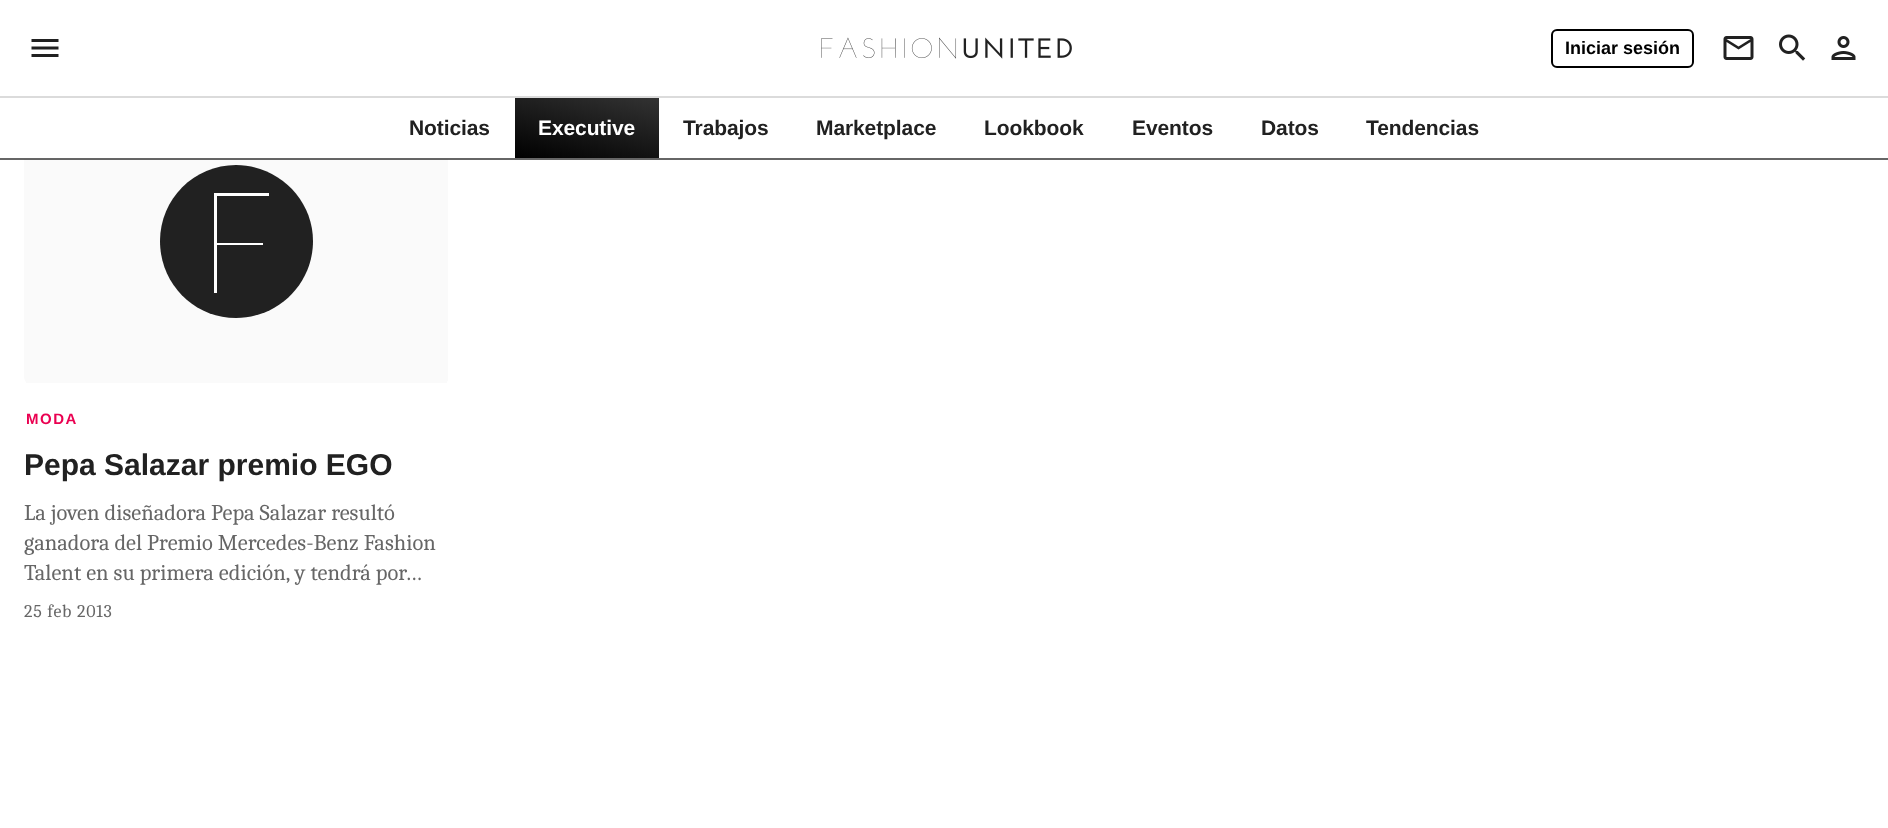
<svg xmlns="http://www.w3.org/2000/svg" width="1888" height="828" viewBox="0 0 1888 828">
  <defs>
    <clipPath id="clip1"><rect x="24" y="101" width="425" height="283" rx="6"/></clipPath>
    <linearGradient id="g1" gradientUnits="userSpaceOnUse" x1="575" y1="173" x2="598" y2="82"><stop offset="0" stop-color="#000000"/><stop offset="1" stop-color="#333333"/></linearGradient>
  </defs>
  <rect width="100%" height="100%" fill="#ffffff"/>
  <rect x="0" y="159" width="1888" height="1" fill="#666666"/>
  <g clip-path="url(#clip1)">
    <g clip-path="url(#clip1)">
      <g clip-path="url(#clip1)">
        <path d="M30 101H448V383H24V107C24 103.5 26.5 101 30 101Z" fill="#fafafa"/>
      </g>
    </g>
  </g>
  <rect x="24" y="101" width="424" height="57" fill="#ffffff"/>
  <rect x="0" y="158" width="1888" height="1" fill="#666666"/>
  <rect x="0" y="96" width="1888" height="2" fill="#dbdbdb"/>
  <image x="31" y="39" width="28" height="18" href="img1.png"/>
  <image x="821" y="37" width="251" height="22" href="img2.png"/>
  <rect x="1552" y="30" width="141" height="37" rx="5" fill="none" stroke="#000000" stroke-width="2"/>
  <text x="1565" y="54" font-family="Liberation Sans" font-size="18" font-weight="bold" fill="#000000">Iniciar sesión</text>
  <image x="1723" y="36" width="31" height="24" href="img3.png"/>
  <image x="1779" y="34" width="27" height="27" href="img4.png"/>
  <image x="1831" y="36" width="25" height="24" href="img5.png"/>
  <text x="409" y="135" font-family="Liberation Sans" font-size="21" font-weight="bold" letter-spacing="-0.1" fill="#212121">Noticias</text>
  <rect x="515" y="98" width="144" height="60" fill="url(#g1)"/>
  <text x="538" y="135" font-family="Liberation Sans" font-size="21" font-weight="bold" letter-spacing="-0.1" fill="#ffffff">Executive</text>
  <text x="683" y="135" font-family="Liberation Sans" font-size="21" font-weight="bold" letter-spacing="-0.1" fill="#212121">Trabajos</text>
  <text x="816" y="135" font-family="Liberation Sans" font-size="21" font-weight="bold" letter-spacing="-0.1" fill="#212121">Marketplace</text>
  <text x="984" y="135" font-family="Liberation Sans" font-size="21" font-weight="bold" letter-spacing="-0.1" fill="#212121">Lookbook</text>
  <text x="1132" y="135" font-family="Liberation Sans" font-size="21" font-weight="bold" letter-spacing="-0.1" fill="#212121">Eventos</text>
  <text x="1261" y="135" font-family="Liberation Sans" font-size="21" font-weight="bold" letter-spacing="-0.1" fill="#212121">Datos</text>
  <text x="1366" y="135" font-family="Liberation Sans" font-size="21" font-weight="bold" letter-spacing="-0.1" fill="#212121">Tendencias</text>
  <rect x="24" y="159" width="424" height="1" fill="#646464"/>
  <path d="M236 318C278 318 313 284 313 241C313 199 278 165 236 165C194 165 160 199 160 241C160 284 194 318 236 318Z" fill="#212121"/>
  <path d="M269 193V196H217V243H263V245H217V293H214V193Z" fill="#ffffff"/>
  <text x="26" y="424" font-family="Liberation Sans" font-size="15" font-weight="bold" letter-spacing="1.5" fill="#ea0151">MODA</text>
  <text x="24" y="475" font-family="Liberation Sans" font-size="30" font-weight="bold" fill="#212121">Pepa Salazar premio EGO</text>
  <text x="24" y="520" font-family="Caladea" font-size="22.5" fill="#666666">La joven diseñadora Pepa Salazar resultó</text>
  <text x="24" y="550" font-family="Caladea" font-size="22.5" fill="#666666">ganadora del Premio Mercedes-Benz Fashion</text>
  <text x="24" y="580" font-family="Caladea" font-size="22.5" fill="#666666">Talent en su primera edición, y tendrá por…</text>
  <text x="24" y="617" font-family="Caladea" font-size="18" letter-spacing="0.75" fill="#666666">25 feb 2013</text>
</svg>
